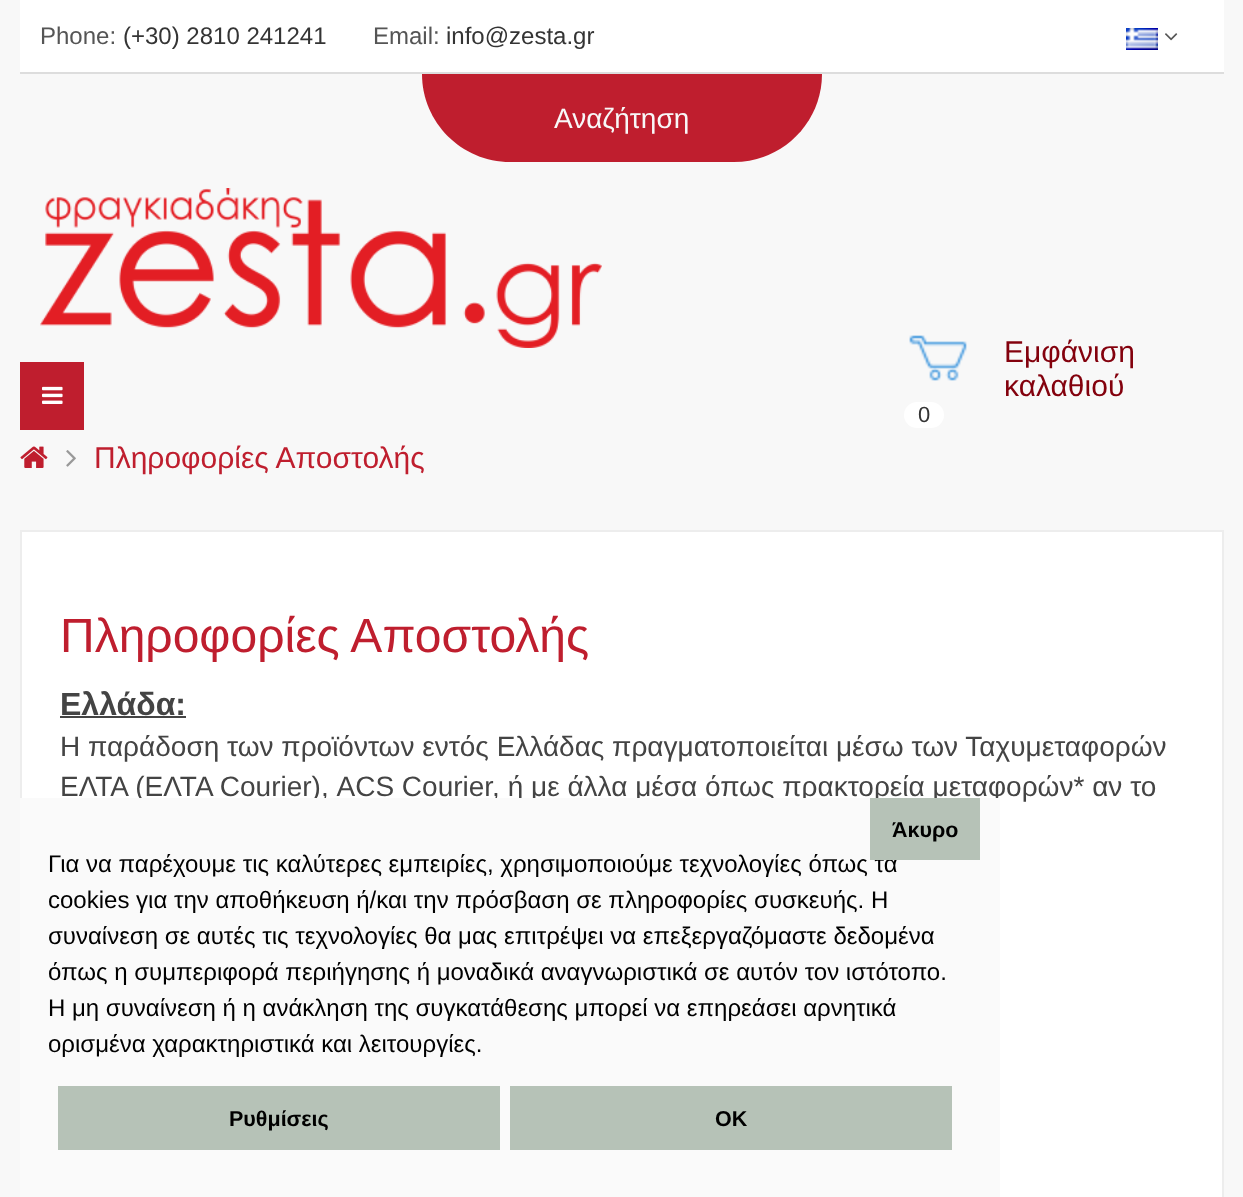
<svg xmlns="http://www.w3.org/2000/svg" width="1243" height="1197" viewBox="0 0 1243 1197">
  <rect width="100%" height="100%" fill="#f8f8f8"/>
  <rect x="20" y="0" width="1204" height="72" fill="#ffffff"/>
  <rect x="20" y="72" width="1204" height="2" fill="#dddddd"/>
  <text x="40" y="44" font-family="Liberation Sans" font-size="24" fill="#555555">Phone:</text>
  <text x="123" y="44" font-family="Liberation Sans" font-size="24" fill="#343434">(+30) 2810 241241</text>
  <text x="373" y="44" font-family="Liberation Sans" font-size="24" fill="#555555">Email:</text>
  <text x="446" y="44" font-family="Liberation Sans" font-size="24" fill="#343434">info@zesta.gr</text>
  <image x="1126" y="28" width="32" height="22" href="img1.png"/>
  <image x="1165" y="33" width="13" height="8" href="img2.png"/>
  <path d="M422 74H822C822 122.5 782.5 162 734 162H510C461.5 162 422 122.5 422 74Z" fill="#bf1e2e"/>
  <text x="554" y="128" font-family="Liberation Sans" font-size="28" fill="#f8f8f8">Αναζήτηση</text>
  <rect x="20" y="362" width="64" height="68" fill="#bf1e2e"/>
  <image x="42" y="386" width="21" height="18" href="img3.png"/>
  <image x="40" y="188" width="562" height="160" href="img4.png"/>
  <image x="909" y="335" width="58" height="46" href="img5.png"/>
  <text x="1004" y="362" font-family="Liberation Sans" font-size="30" fill="#83010d">Εμφάνιση</text>
  <text x="1004" y="396" font-family="Liberation Sans" font-size="30" fill="#83010d">καλαθιού</text>
  <rect x="904" y="402" width="40" height="26" rx="13" fill="#ffffff"/>
  <text x="918" y="422" font-family="Liberation Sans" font-size="22" fill="#343434">0</text>
  <image x="20" y="446" width="28" height="22" href="img6.png"/>
  <image x="66" y="450" width="10" height="17" href="img7.png"/>
  <text x="94" y="468" font-family="Liberation Sans" font-size="30" fill="#bf1e2e">Πληροφορίες Αποστολής</text>
  <rect x="21" y="531" width="1202" height="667" fill="#ffffff" stroke="#ededed" stroke-width="2"/>
  <text x="60" y="652" font-family="Liberation Sans" font-size="48" fill="#bf1e2e">Πληροφορίες Αποστολής</text>
  <text x="60" y="715" font-family="Liberation Sans" font-size="32" font-weight="bold" fill="#444444">Ελλάδα:</text>
  <rect x="60" y="716" width="126" height="2" fill="#444444"/>
  <text x="60" y="756" font-family="Liberation Sans" font-size="28" fill="#444444">Η παράδοση των προϊόντων εντός Ελλάδας πραγματοποιείται μέσω των Ταχυμεταφορών</text>
  <text x="60" y="796" font-family="Liberation Sans" font-size="28" fill="#444444">ΕΛΤΑ (ΕΛΤΑ Courier), ACS Courier, ή με άλλα μέσα όπως πρακτορεία μεταφορών* αν το</text>
  <rect x="20" y="798" width="980" height="399" fill="#fafafa"/>
  <text x="48" y="872" font-family="Liberation Sans" font-size="24" fill="#000000">Για να παρέχουμε τις καλύτερες εμπειρίες, χρησιμοποιούμε τεχνολογίες όπως τα</text>
  <rect x="870" y="798" width="110" height="62" fill="#b6c2b7"/>
  <text x="892" y="837" font-family="Liberation Sans" font-size="21.5" font-weight="bold" fill="#000000">Άκυρο</text>
  <rect x="58" y="1086" width="442" height="64" fill="#b6c2b7"/>
  <text x="229" y="1126" font-family="Liberation Sans" font-size="21.5" font-weight="bold" fill="#000000">Ρυθμίσεις</text>
  <rect x="510" y="1086" width="442" height="64" fill="#b6c2b7"/>
  <text x="715" y="1126" font-family="Liberation Sans" font-size="21.5" font-weight="bold" fill="#000000">ΟΚ</text>
  <text x="48" y="908" font-family="Liberation Sans" font-size="24" fill="#000000">cookies για την αποθήκευση ή/και την πρόσβαση σε πληροφορίες συσκευής. Η</text>
  <text x="48" y="944" font-family="Liberation Sans" font-size="24" fill="#000000">συναίνεση σε αυτές τις τεχνολογίες θα μας επιτρέψει να επεξεργαζόμαστε δεδομένα</text>
  <text x="48" y="980" font-family="Liberation Sans" font-size="24" fill="#000000">όπως η συμπεριφορά περιήγησης ή μοναδικά αναγνωριστικά σε αυτόν τον ιστότοπο.</text>
  <text x="48" y="1016" font-family="Liberation Sans" font-size="24" fill="#000000">Η μη συναίνεση ή η ανάκληση της συγκατάθεσης μπορεί να επηρεάσει αρνητικά</text>
  <text x="48" y="1052" font-family="Liberation Sans" font-size="24" fill="#000000">ορισμένα χαρακτηριστικά και λειτουργίες.</text>
</svg>
